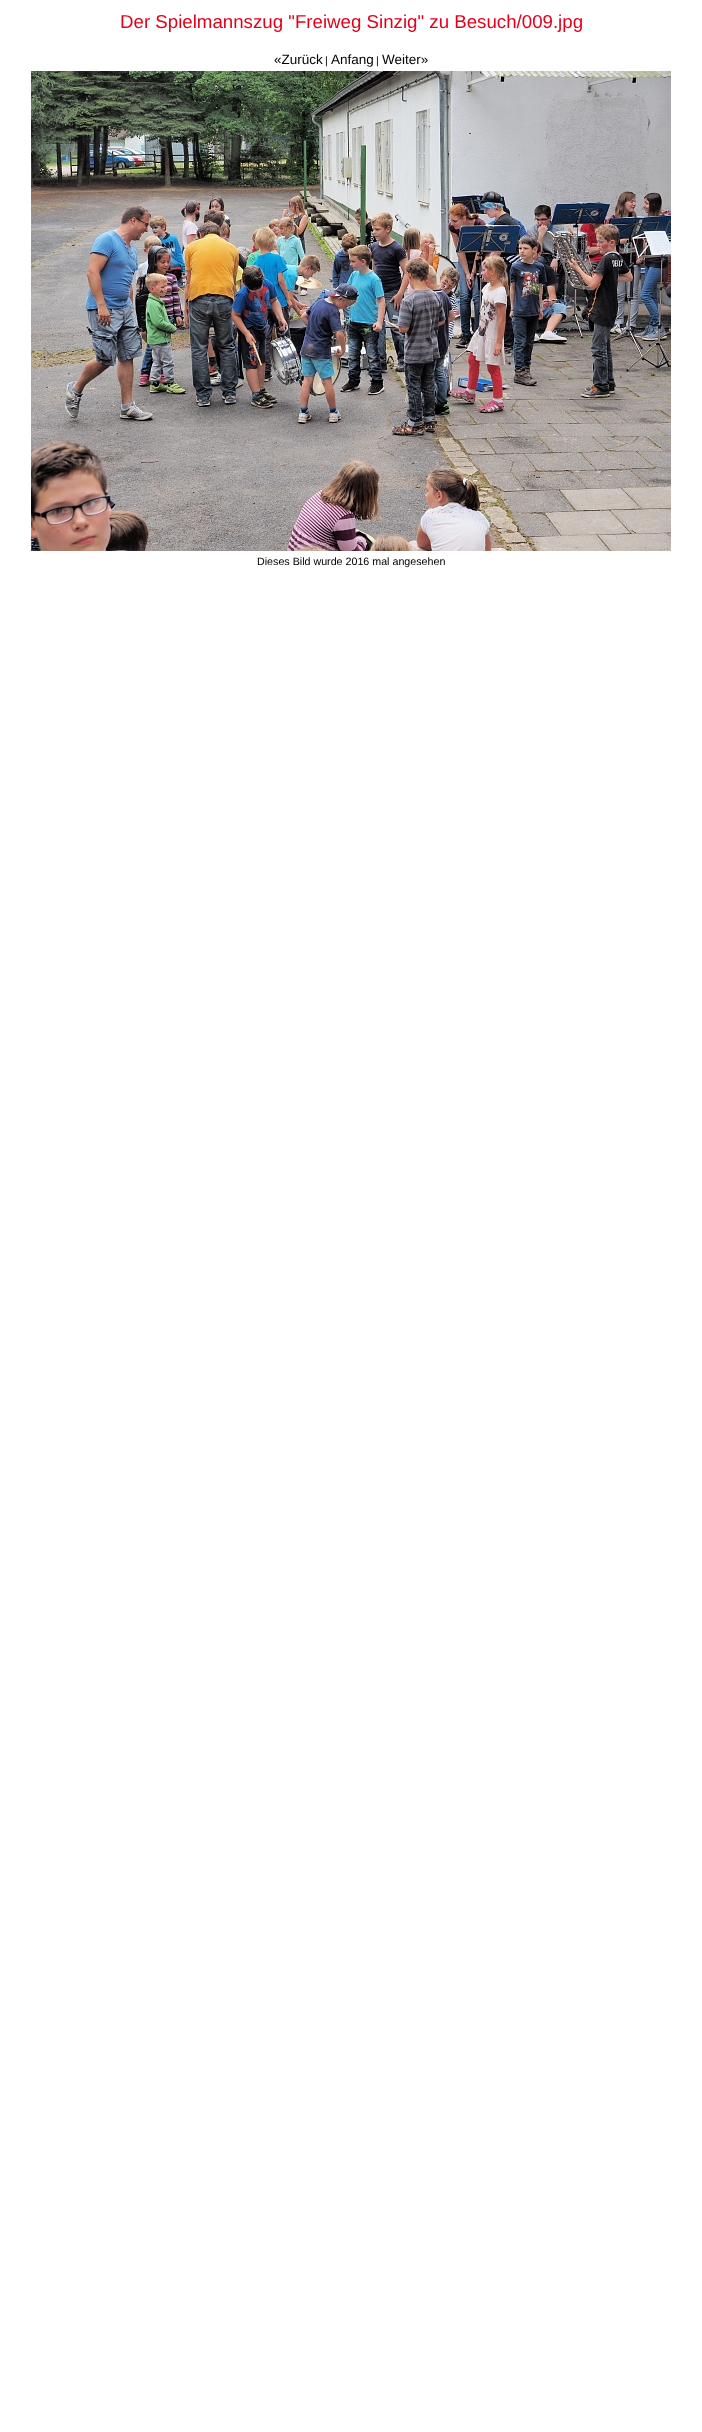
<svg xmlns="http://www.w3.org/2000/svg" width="702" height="2432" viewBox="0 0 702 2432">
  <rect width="100%" height="100%" fill="#ffffff"/>
  <text x="120" y="28" font-family="Liberation Sans" font-size="18.7" fill="#e2001a">Der Spielmannszug "Freiweg Sinzig" zu Besuch/009.jpg</text>
  <text x="274" y="64" font-family="Liberation Sans" font-size="13.5" fill="#000000">«Zurück</text>
  <text x="325" y="64" font-family="Liberation Sans" font-size="10.7" fill="#000000">|</text>
  <text x="331" y="64" font-family="Liberation Sans" font-size="13.5" fill="#000000">Anfang</text>
  <text x="376" y="64" font-family="Liberation Sans" font-size="10.7" fill="#000000">|</text>
  <text x="382" y="64" font-family="Liberation Sans" font-size="13.5" fill="#000000">Weiter»</text>
  <image x="31" y="71" width="640" height="480" href="img1.png"/>
  <text x="257" y="565" font-family="Liberation Sans" font-size="10.7" fill="#000000">Dieses Bild wurde 2016 mal angesehen</text>
</svg>
